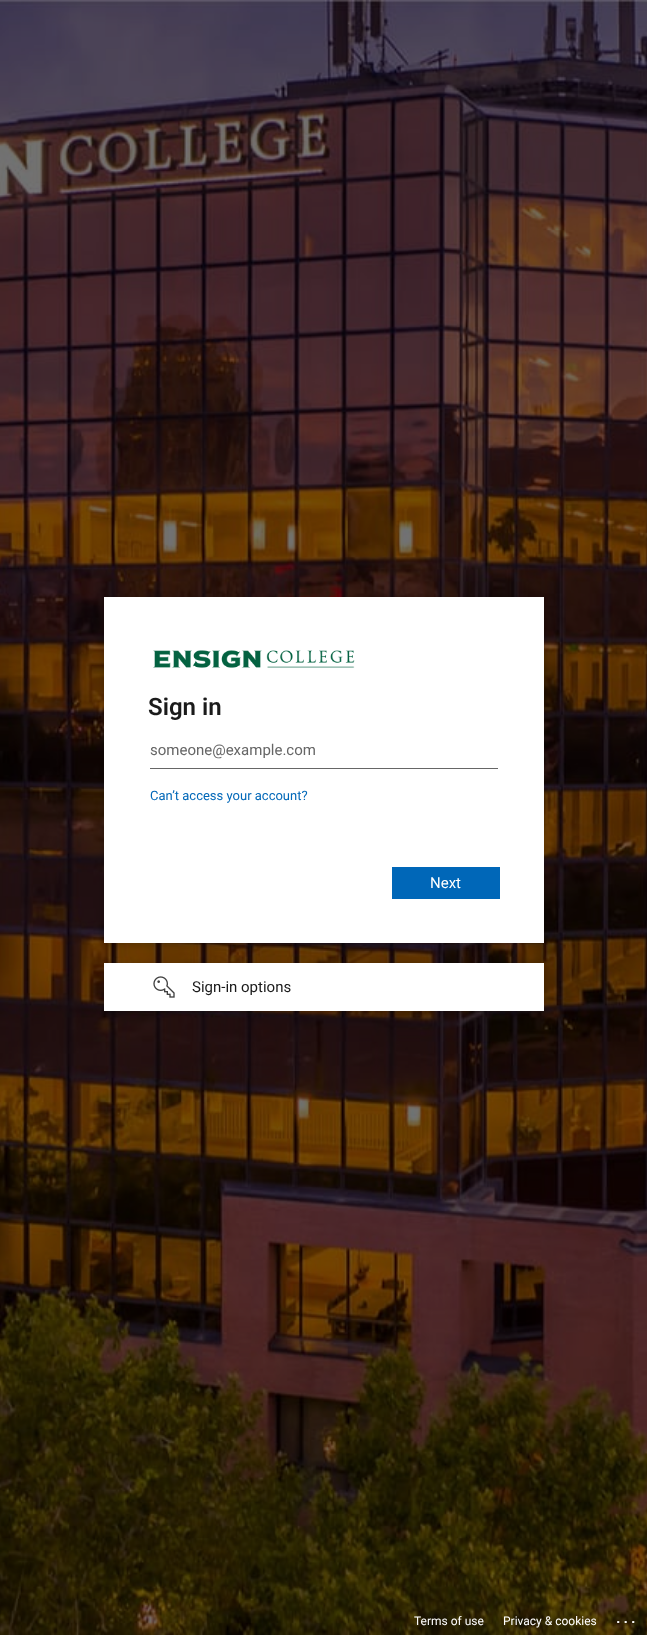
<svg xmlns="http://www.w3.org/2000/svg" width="647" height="1635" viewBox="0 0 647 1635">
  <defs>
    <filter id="blur1" x="-50%" y="-200%" width="200%" height="500%"><feGaussianBlur stdDeviation="3"/></filter>
  </defs>
  <rect width="100%" height="100%" fill="#ffffff"/>
  <image x="0" y="0" width="647" height="1635" href="img1.png"/>
  <rect x="104" y="599" width="440" height="346" fill="#000000" fill-opacity="0.2" filter="url(#blur1)"/>
  <rect x="104" y="597" width="440" height="346" fill="#ffffff"/>
  <image x="153" y="650" width="202" height="18" href="img2.png"/>
  <text x="148" y="715" font-family="Roboto" font-size="24" font-weight="600" fill="#1b1b1b">Sign in</text>
  <rect x="150" y="768" width="348" height="1" fill="#666666"/>
  <text x="150" y="755" font-family="Roboto" font-size="15" fill="#666666">someone@example.com</text>
  <text x="150" y="800" font-family="Roboto" font-size="13" fill="#0067b8">Can’t access your account?</text>
  <rect x="392" y="867" width="108" height="32" fill="#0067b8"/>
  <text x="430" y="888" font-family="Roboto" font-size="15" fill="#ffffff">Next</text>
  <rect x="104" y="965" width="440" height="48" fill="#000000" fill-opacity="0.2" filter="url(#blur1)"/>
  <rect x="104" y="963" width="440" height="48" fill="#ffffff"/>
  <image x="153" y="976" width="22" height="22" href="img3.png"/>
  <text x="192" y="992" font-family="Roboto" font-size="15" fill="#1b1b1b">Sign-in options</text>
  <text x="414" y="1625" font-family="Roboto" font-size="12" fill="#ffffff">Terms of use</text>
  <text x="503" y="1625" font-family="Roboto" font-size="12" fill="#ffffff">Privacy &amp; cookies</text>
  <text x="616" y="1623" font-family="Roboto" font-size="16" font-weight="600" letter-spacing="3" fill="#ffffff">...</text>
</svg>
